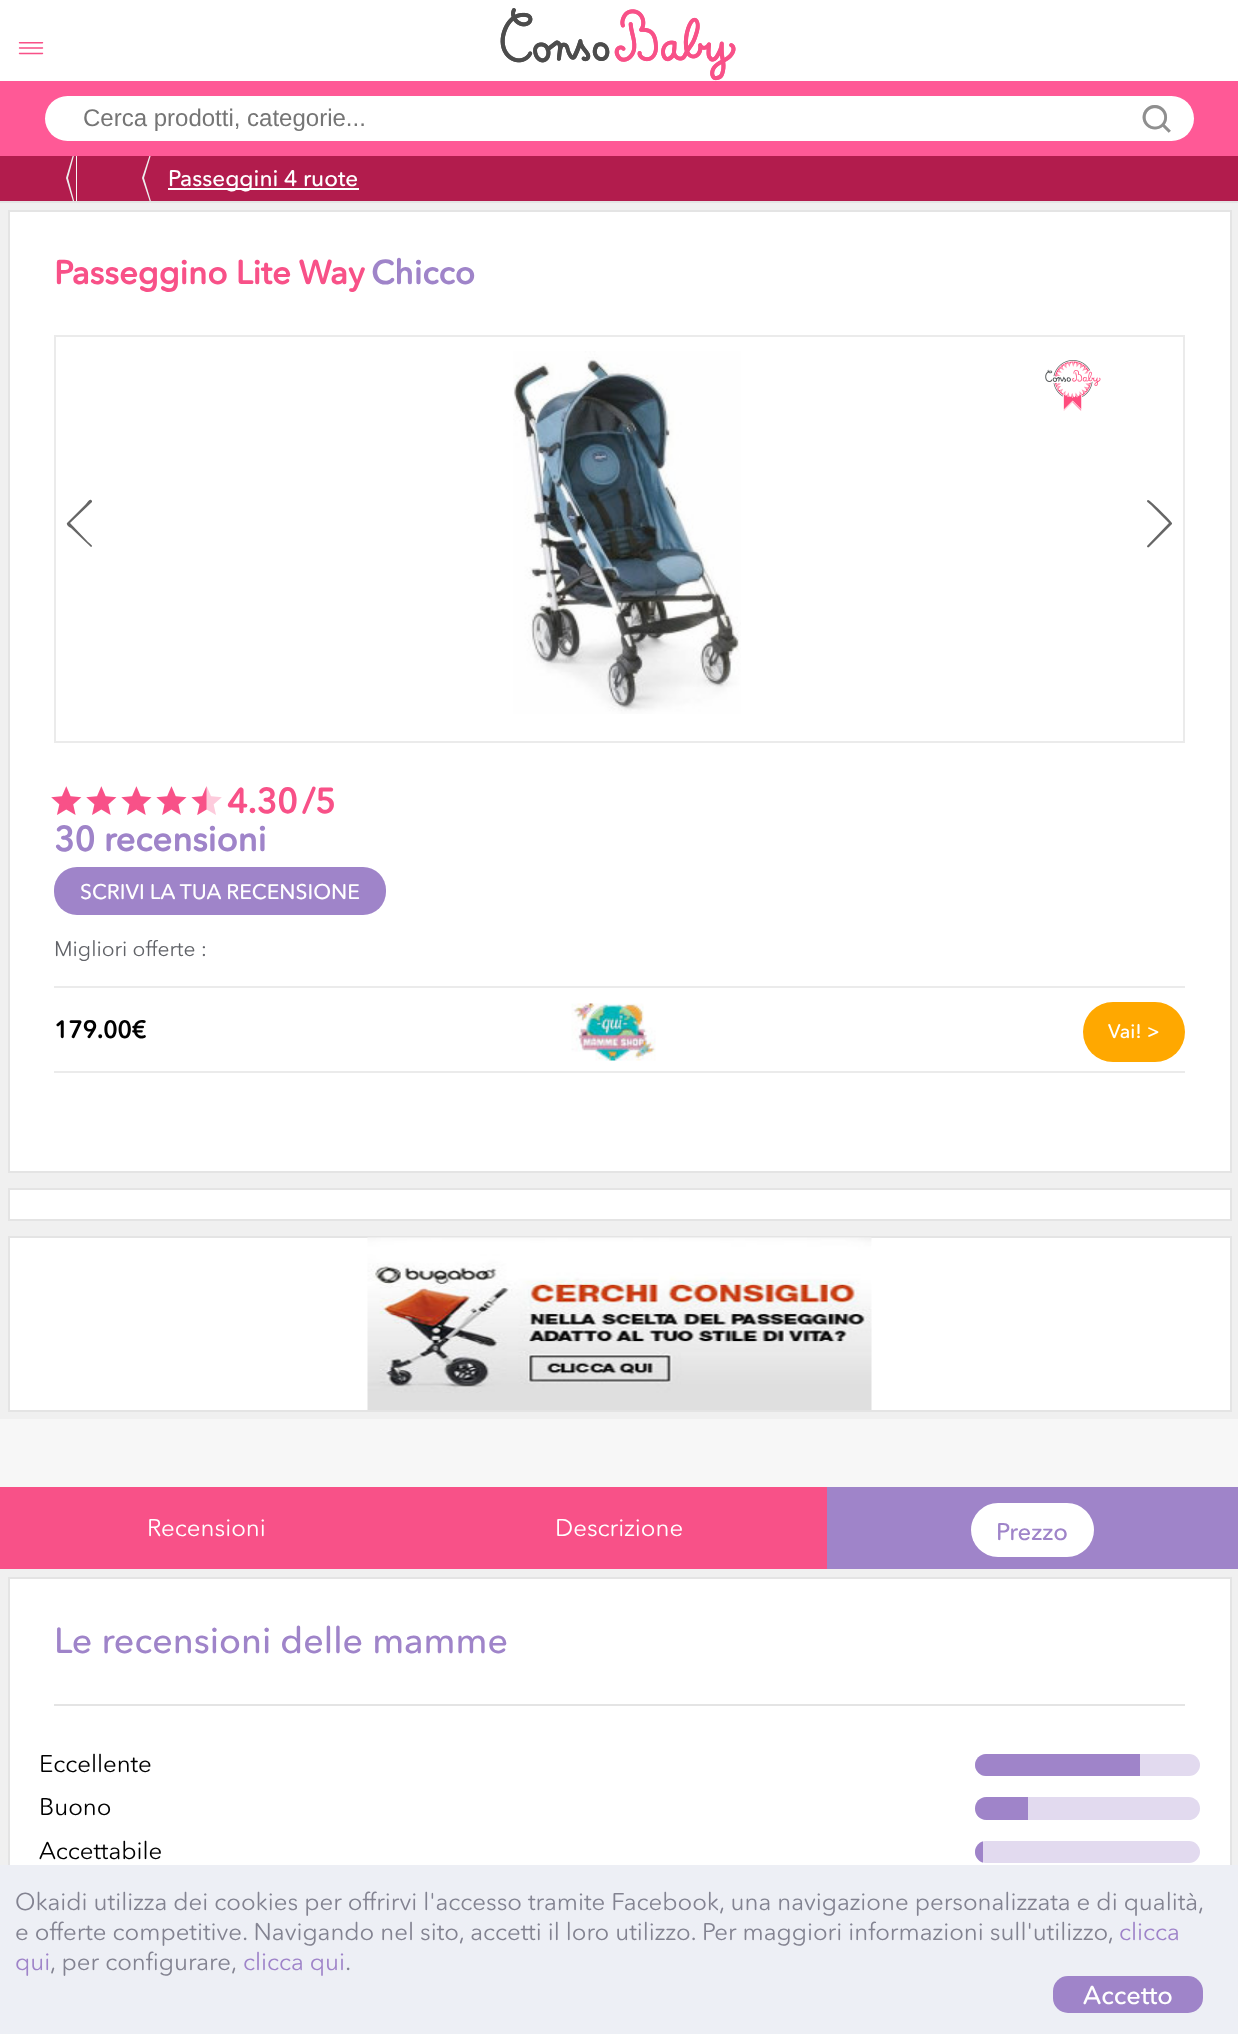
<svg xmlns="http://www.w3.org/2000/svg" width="1238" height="2034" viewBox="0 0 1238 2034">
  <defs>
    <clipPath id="clip1"><rect x="0" y="156" width="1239" height="45"/></clipPath>
    <clipPath id="clip2"><rect x="975" y="1841" width="225" height="22" rx="11"/></clipPath>
  </defs>
  <rect width="100%" height="100%" fill="#ffffff"/>
  <text x="25" y="40" transform="rotate(90 25 40)" font-family="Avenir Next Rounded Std" font-size="24" fill="#f85188">|||</text>
  <image x="500" y="8" width="236" height="73" href="img1.png"/>
  <rect x="0" y="81" width="1238" height="75" fill="#ff5996"/>
  <rect x="45" y="96" width="1149" height="45" rx="22.5" fill="#ffffff"/>
  <text x="83" y="126" font-family="Liberation Sans" font-size="24" fill="#757575">Cerca prodotti, categorie...</text>
  <image x="1142" y="105" width="29" height="28" href="img2.png"/>
  <rect x="0" y="156" width="1238" height="1331" fill="#f7f7f7"/>
  <rect x="0" y="201" width="1238" height="2" fill="#e4e4e4"/>
  <rect x="0" y="156" width="73" height="45" fill="#b21c4d"/>
  <g clip-path="url(#clip1)">
    <path d="M75 148V208L66 178Z" fill="#eeeeee"/>
  </g>
  <rect x="77" y="156" width="73" height="45" fill="#b21c4d"/>
  <g clip-path="url(#clip1)">
    <path d="M76 148V208L68 178Z" fill="#b21c4d"/>
    <path d="M152 148V208L142 178Z" fill="#eeeeee"/>
  </g>
  <rect x="153" y="156" width="1085" height="45" fill="#b21c4d"/>
  <g clip-path="url(#clip1)">
    <path d="M153 148V208L144 178Z" fill="#b21c4d"/>
  </g>
  <rect x="168" y="188" width="191" height="2" fill="#ffffff"/>
  <text x="168" y="186" font-family="Avenir Next Rounded Std" font-size="22.5" font-weight="500" fill="#ffffff">Passeggini 4 ruote</text>
  <rect x="10" y="212" width="1220" height="959" fill="#ffffff"/>
  <rect x="4" y="207" width="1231" height="970" fill="none" stroke="#f0f0f0" stroke-width="8"/>
  <rect x="9" y="211" width="1222" height="961" fill="none" stroke="#e4e4e4" stroke-width="2"/>
  <text x="54" y="284" font-family="Avenir Next Rounded Std" font-size="33" font-weight="bold" fill="#f85188">Passeggino Lite Way</text>
  <text x="371" y="284" font-family="Avenir Next Rounded Std" font-size="33" font-weight="bold" fill="#9f84c9">Chicco</text>
  <rect x="55" y="336" width="1129" height="406" fill="none" stroke="#ebebeb" stroke-width="2"/>
  <path d="M70 523L92 502C92 501 92 500 91 500C89 499 88 502 86 504L67 523C66 525 69 527 71 528L91 547C94 546 90 544 88 542Z" fill="#666666"/>
  <image x="513" y="351" width="228" height="363" href="img3.png"/>
  <path d="M1172 523C1169 519 1149 499 1148 500C1145 501 1149 503 1151 505L1169 523L1147 546C1147 547 1148 548 1149 547L1172 524Z" fill="#666666"/>
  <image x="1045" y="360" width="56" height="51" href="img4.png"/>
  <image x="51" y="786" width="171" height="29" href="img5.png"/>
  <text x="227" y="813" font-family="Avenir Next Rounded Std" font-size="34.5" font-weight="bold" fill="#f85188">4.30</text>
  <text x="302" y="813" font-family="Avenir Next Rounded Std" font-size="34.5" font-weight="bold" fill="#f85188">/5</text>
  <text x="54" y="851" font-family="Avenir Next Rounded Std" font-size="34.5" font-weight="bold" fill="#9f84c9">30 recensioni</text>
  <rect x="54" y="867" width="332" height="48" rx="23" fill="#9f84c9"/>
  <text x="80" y="899" font-family="Avenir Next Rounded Std" font-size="21" font-weight="500" fill="#ffffff">SCRIVI LA TUA RECENSIONE</text>
  <text x="54" y="956" font-family="Avenir Next Rounded Std" font-size="21" fill="#616368">Migliori offerte :</text>
  <rect x="54" y="986" width="1131" height="2" fill="#ebebeb"/>
  <rect x="54" y="1071" width="1131" height="2" fill="#ebebeb"/>
  <text x="54" y="1038" font-family="Avenir Next Rounded Std" font-size="24" font-weight="bold" fill="#000000">179.00€</text>
  <image x="571" y="1003" width="85" height="58" href="img6.png"/>
  <rect x="1083" y="1002" width="102" height="60" rx="30" fill="#ffa800"/>
  <text x="1108" y="1038" font-family="Avenir Next Rounded Std" font-size="19.5" font-weight="500" fill="#ffffff">Vai! &gt;</text>
  <rect x="10" y="1190" width="1220" height="29" fill="#ffffff"/>
  <rect x="4" y="1185" width="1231" height="40" fill="none" stroke="#f0f0f0" stroke-width="8"/>
  <rect x="9" y="1189" width="1222" height="31" fill="none" stroke="#e4e4e4" stroke-width="2"/>
  <rect x="10" y="1238" width="1220" height="172" fill="#ffffff"/>
  <rect x="4" y="1233" width="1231" height="182" fill="none" stroke="#f0f0f0" stroke-width="8"/>
  <rect x="9" y="1237" width="1222" height="174" fill="none" stroke="#e4e4e4" stroke-width="2"/>
  <image x="367" y="1237" width="505" height="173" href="img7.png"/>
  <rect x="827" y="1487" width="411" height="82" fill="#9f84c9"/>
  <rect x="0" y="1487" width="827" height="82" fill="#f85188"/>
  <text x="147" y="1536" font-family="Avenir Next Rounded Std" font-size="24" fill="#ffffff">Recensioni</text>
  <text x="555" y="1536" font-family="Avenir Next Rounded Std" font-size="24" fill="#ffffff">Descrizione</text>
  <rect x="971" y="1503" width="123" height="54" rx="27" fill="#ffffff"/>
  <text x="996" y="1540" font-family="Avenir Next Rounded Std" font-size="24" font-weight="500" fill="#9f84c9">Prezzo</text>
  <rect x="4" y="1573" width="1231" height="372" fill="none" stroke="#f0f0f0" stroke-width="8"/>
  <rect x="9" y="1578" width="1222" height="362" fill="none" stroke="#e4e4e4" stroke-width="2"/>
  <rect x="54" y="1704" width="1131" height="2" fill="#e4e4e4"/>
  <text x="54" y="1653" font-family="Avenir Next Rounded Std" font-size="36" font-weight="500" fill="#9f84c9">Le recensioni delle mamme</text>
  <text x="39" y="1772" font-family="Avenir Next Rounded Std" font-size="24" fill="#000000">Eccellente</text>
  <rect x="975" y="1754" width="225" height="22" rx="11" fill="#e2daef"/>
  <path d="M986 1754H1140V1776H986C980 1776 975 1771 975 1765C975 1759 980 1754 986 1754Z" fill="#9f84c9"/>
  <text x="39" y="1815" font-family="Avenir Next Rounded Std" font-size="24" fill="#000000">Buono</text>
  <rect x="975" y="1797" width="225" height="23" rx="11.5" fill="#e2daef"/>
  <path d="M986.5 1797H1028V1820H986.5C980 1820 975 1815 975 1808.5C975 1802 980 1797 986.5 1797Z" fill="#9f84c9"/>
  <text x="39" y="1859" font-family="Avenir Next Rounded Std" font-size="24" fill="#000000">Accettabile</text>
  <rect x="975" y="1841" width="225" height="22" rx="11" fill="#e2daef"/>
  <g clip-path="url(#clip2)">
    <rect x="975" y="1841" width="8" height="22" fill="#9f84c9"/>
  </g>
  <rect x="0" y="1865" width="1238" height="169" fill="#edeff5"/>
  <text x="15" y="1910" font-family="Avenir Next Rounded Std" font-size="24" fill="#838391">Okaidi utilizza dei cookies per offrirvi l'accesso tramite Facebook, una navigazione personalizzata e di qualità,</text>
  <text x="15" y="1940" font-family="Avenir Next Rounded Std" font-size="24" fill="#838391">e offerte competitive. Navigando nel sito, accetti il loro utilizzo. Per maggiori informazioni sull'utilizzo,</text>
  <text x="1119" y="1940" font-family="Avenir Next Rounded Std" font-size="24" fill="#9f84c9">clicca</text>
  <text x="15" y="1970" font-family="Avenir Next Rounded Std" font-size="24" fill="#9f84c9">qui</text>
  <text x="50" y="1970" font-family="Avenir Next Rounded Std" font-size="24" fill="#838391">, per configurare,</text>
  <text x="243" y="1970" font-family="Avenir Next Rounded Std" font-size="24" fill="#9f84c9">clicca qui</text>
  <text x="345" y="1970" font-family="Avenir Next Rounded Std" font-size="24" fill="#838391">.</text>
  <rect x="1053" y="1976" width="150" height="37" rx="15" fill="#9f84c9"/>
  <text x="1083" y="2004" font-family="Avenir Next Rounded Std" font-size="25.5" font-weight="500" fill="#ffffff">Accetto</text>
</svg>
